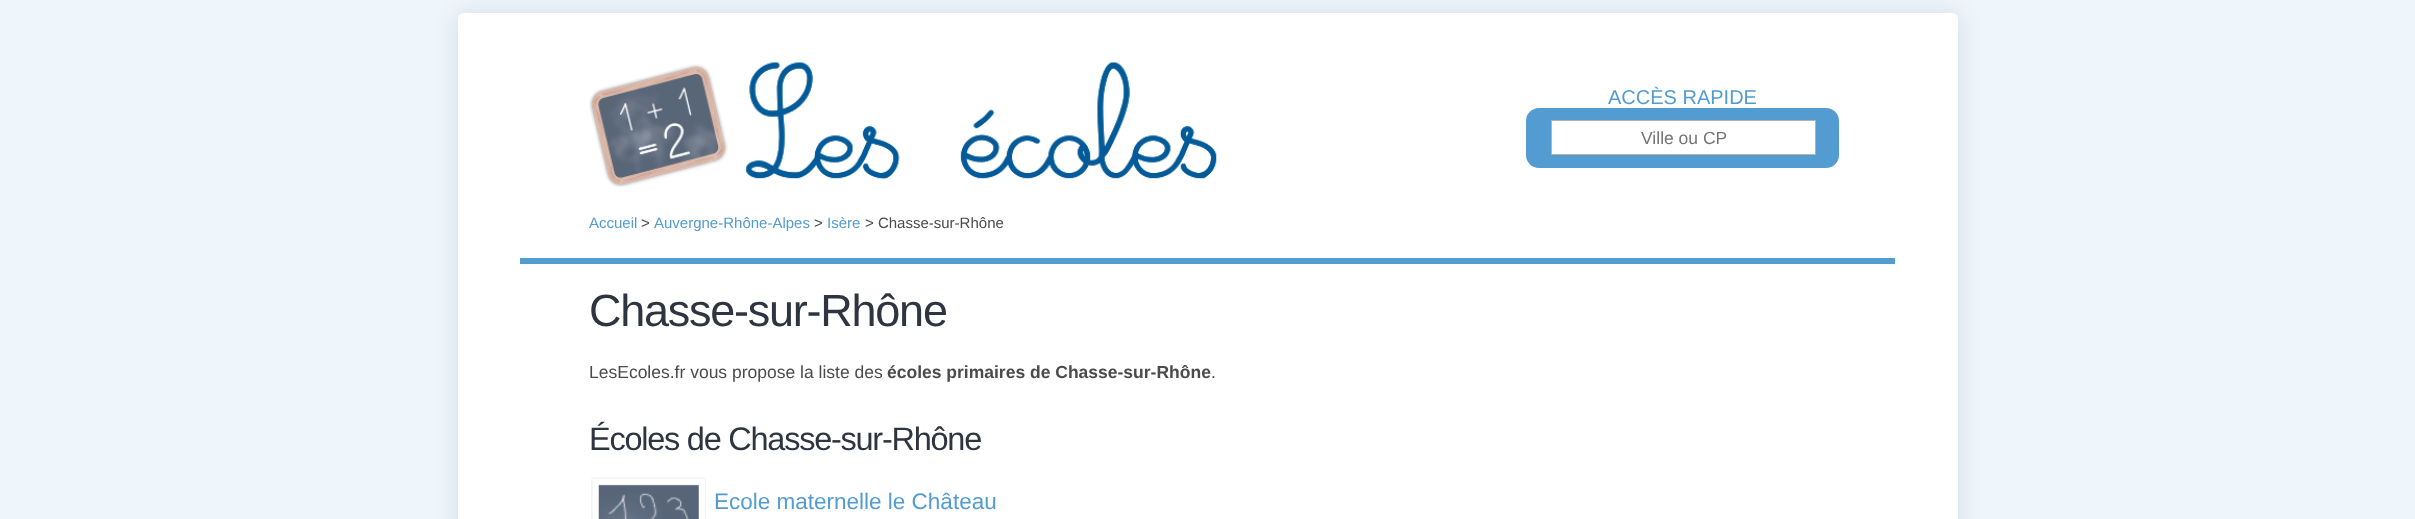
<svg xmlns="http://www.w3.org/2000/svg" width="2415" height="519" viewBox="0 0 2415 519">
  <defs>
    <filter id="blur1" x="-50%" y="-200%" width="200%" height="500%"><feGaussianBlur stdDeviation="12.5"/></filter>
  </defs>
  <rect width="100%" height="100%" fill="#eef6fb"/>
  <rect x="458" y="13" width="1500" height="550" rx="6" fill="#000000" fill-opacity="0.1" filter="url(#blur1)"/>
  <rect x="458" y="13" width="1500" height="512" rx="6" fill="#ffffff"/>
  <rect x="520" y="258" width="1375" height="6" fill="#539cd1"/>
  <image x="589" y="62" width="628" height="125" href="img1.png"/>
  <text x="1608" y="104" font-family="Liberation Sans" font-size="20" fill="#539cd1">ACCÈS RAPIDE</text>
  <rect x="1526" y="108" width="313" height="60" rx="13" fill="#539cd1"/>
  <rect x="1551.5" y="120.5" width="264" height="34" fill="#ffffff" stroke="#b3b3b3"/>
  <text x="1641" y="144" font-family="Liberation Sans" font-size="17.5" fill="#757575">Ville ou CP</text>
  <text x="589" y="228" font-family="Liberation Sans" font-size="15" fill="#539cd1">Accueil</text>
  <text x="641" y="228" font-family="Liberation Sans" font-size="15" fill="#4b4b4b">&gt;</text>
  <text x="654" y="228" font-family="Liberation Sans" font-size="15" fill="#539cd1">Auvergne-Rhône-Alpes</text>
  <text x="814" y="228" font-family="Liberation Sans" font-size="15" fill="#4b4b4b">&gt;</text>
  <text x="827" y="228" font-family="Liberation Sans" font-size="15" fill="#539cd1">Isère</text>
  <text x="865" y="228" font-family="Liberation Sans" font-size="15" fill="#4b4b4b">&gt; Chasse-sur-Rhône</text>
  <text x="589" y="326" font-family="Liberation Sans" font-size="45" letter-spacing="-1.25" fill="#2f3540">Chasse-sur-Rhône</text>
  <text x="589" y="378" font-family="Liberation Sans" font-size="17.5" fill="#4b4b4b">LesEcoles.fr vous propose la liste des</text>
  <text x="887" y="378" font-family="Liberation Sans" font-size="17.5" font-weight="bold" fill="#4b4b4b">écoles primaires de Chasse-sur-Rhône</text>
  <text x="1211" y="378" font-family="Liberation Sans" font-size="17.5" fill="#4b4b4b">.</text>
  <text x="589" y="450" font-family="Liberation Sans" font-size="32.5" letter-spacing="-1.25" fill="#2f3540">Écoles de Chasse-sur-Rhône</text>
  <image x="591" y="477" width="115" height="42" href="img2.png"/>
  <text x="714" y="509" font-family="Liberation Sans" font-size="22.5" fill="#539cd1">Ecole maternelle le Château</text>
</svg>
